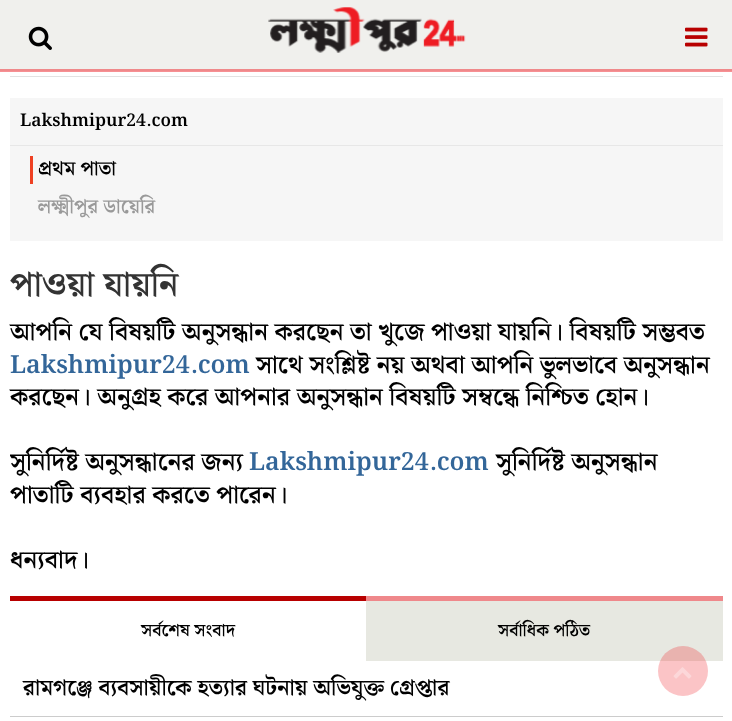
<svg xmlns="http://www.w3.org/2000/svg" width="732" height="721" viewBox="0 0 732 721">
  <defs>
    <clipPath id="clip1"><rect x="10" y="316" width="713" height="260"/></clipPath>
  </defs>
  <rect width="100%" height="100%" fill="#ffffff"/>
  <rect x="0" y="71" width="732" height="1" fill="#f79094"/>
  <rect x="0" y="0" width="732" height="69" fill="#f0f0ed"/>
  <rect x="0" y="69" width="732" height="2" fill="#ef898b"/>
  <image x="268" y="7" width="198" height="46" href="img1.png"/>
  <image x="28" y="26" width="24" height="24" href="img2.png"/>
  <image x="685" y="27" width="23" height="20" href="img3.png"/>
  <rect x="10" y="76" width="713" height="1" fill="#e2e2e2"/>
  <rect x="10" y="98" width="713" height="143" fill="#f6f6f6"/>
  <rect x="10" y="145" width="713" height="1" fill="#e7e7e7"/>
  <text x="20" y="126" font-family="Noto Serif Bengali" font-size="17.5" font-weight="600" fill="#000000">Lakshmipur24.com</text>
  <rect x="30" y="156" width="3" height="28" fill="#ef4123"/>
  <text x="38" y="175" font-family="Noto Serif Bengali" font-size="20" font-weight="600" fill="#000000">প্রথম পাতা</text>
  <text x="38" y="213" font-family="Noto Serif Bengali" font-size="20" font-weight="600" fill="#999999">লক্ষ্মীপুর ডায়েরি</text>
  <text x="10" y="296" font-family="Noto Serif Bengali" font-size="35" font-weight="600" fill="#333333">পাওয়া যায়নি</text>
  <text x="10" y="340" font-family="Noto Serif Bengali" font-size="25" font-weight="600" fill="#000000">আপনি যে বিষয়টি অনুসন্ধান করছেন তা খুজে পাওয়া যায়নি। বিষয়টি সম্ভবত</text>
  <text x="10" y="373" font-family="Noto Serif Bengali" font-size="25" font-weight="600" fill="#336699">Lakshmipur24.com</text>
  <text x="256" y="373" font-family="Noto Serif Bengali" font-size="25" font-weight="600" fill="#000000">সাথে সংশ্লিষ্ট নয় অথবা আপনি ভুলভাবে অনুসন্ধান</text>
  <text x="10" y="405" font-family="Noto Serif Bengali" font-size="25" font-weight="600" fill="#000000">করছেন। অনুগ্রহ করে আপনার অনুসন্ধান বিষয়টি সম্বন্ধে নিশ্চিত হোন।</text>
  <g clip-path="url(#clip1)">
    <text x="10" y="470" font-family="Noto Serif Bengali" font-size="25" font-weight="600" fill="#000000">সুনির্দিষ্ট অনুসন্ধানের জন্য</text>
  </g>
  <text x="249" y="470" font-family="Noto Serif Bengali" font-size="25" font-weight="600" fill="#336699">Lakshmipur24.com</text>
  <text x="496" y="470" font-family="Noto Serif Bengali" font-size="25" font-weight="600" fill="#000000">সুনির্দিষ্ট অনুসন্ধান</text>
  <text x="10" y="503" font-family="Noto Serif Bengali" font-size="25" font-weight="600" fill="#000000">পাতাটি ব্যবহার করতে পারেন।</text>
  <text x="10" y="568" font-family="Noto Serif Bengali" font-size="25" font-weight="600" fill="#000000">ধন্যবাদ।</text>
  <rect x="10" y="596" width="356" height="5" fill="#b80000"/>
  <text x="141" y="636" font-family="Noto Serif Bengali" font-size="17.5" font-weight="600" fill="#000000">সর্বশেষ সংবাদ</text>
  <rect x="366" y="601" width="357" height="60" fill="#e7e8e1"/>
  <rect x="366" y="596" width="357" height="5" fill="#ef888b"/>
  <text x="498" y="636" font-family="Noto Serif Bengali" font-size="17.5" font-weight="600" fill="#000000">সর্বাধিক পঠিত</text>
  <rect x="10" y="716" width="713" height="1" fill="#cccccc"/>
  <text x="23" y="695" font-family="Noto Serif Bengali" font-size="22.5" font-weight="600" fill="#000000">রামগঞ্জে ব্যবসায়ীকে হত্যার ঘটনায় অভিযুক্ত গ্রেপ্তার</text>
  <circle cx="683" cy="671" r="25" fill="#ee1c23" fill-opacity="0.26"/>
  <image x="673" y="667" width="19" height="12" href="img4.png"/>
</svg>
